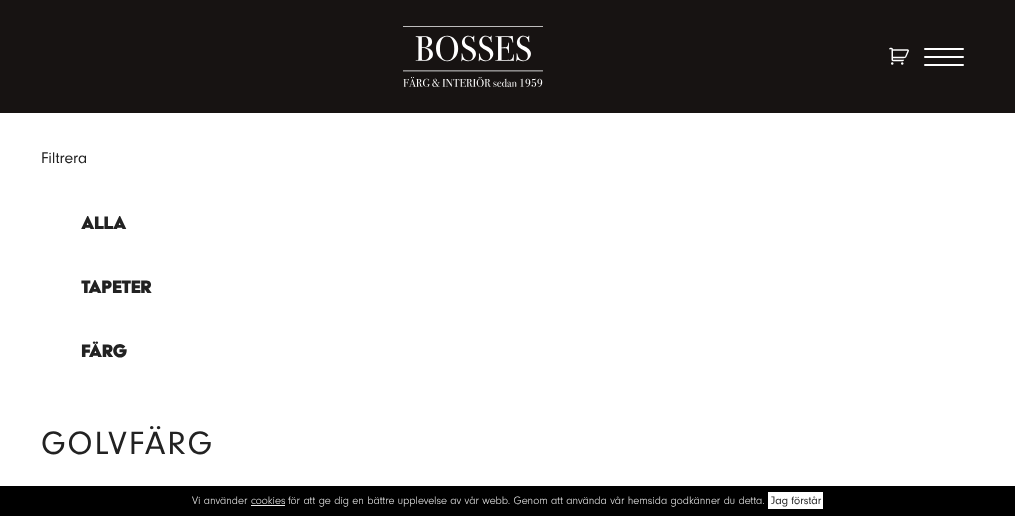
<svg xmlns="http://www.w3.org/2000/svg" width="1015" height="516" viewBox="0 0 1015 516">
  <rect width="100%" height="100%" fill="#ffffff"/>
  <rect x="0" y="0" width="1015" height="113" fill="#171312"/>
  <image x="403" y="26" width="140" height="61" href="img1.png"/>
  <image x="889" y="47" width="20" height="18" href="img2.png"/>
  <rect x="924" y="56" width="40" height="2" rx="1" fill="#ffffff"/>
  <rect x="924" y="48" width="40" height="2" rx="1" fill="#ffffff"/>
  <rect x="924" y="64" width="40" height="2" rx="1" fill="#ffffff"/>
  <text x="41" y="163" font-family="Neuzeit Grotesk" font-size="16" fill="#222222">Filtrera</text>
  <text x="81" y="229" font-family="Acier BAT" font-size="20" font-weight="bold" fill="#222222">ALLA</text>
  <text x="81" y="293" font-family="Acier BAT" font-size="20" font-weight="bold" fill="#222222">TAPETER</text>
  <text x="81" y="357" font-family="Acier BAT" font-size="20" font-weight="bold" fill="#222222">FÄRG</text>
  <text x="41" y="454" font-family="Neuzeit Grotesk" font-size="33.5" letter-spacing="2" fill="#222222">GOLVFÄRG</text>
  <rect x="0" y="486" width="1015" height="30" fill="#000000"/>
  <text x="192" y="504" font-family="Neuzeit Grotesk" font-size="11.2" font-weight="300" fill="#eeeeee">Vi använder</text>
  <text x="251" y="504" font-family="Neuzeit Grotesk" font-size="11.2" font-weight="300" fill="#eeeeee">cookies</text>
  <rect x="251" y="505" width="34" height="1" fill="#ededed"/>
  <text x="288" y="504" font-family="Neuzeit Grotesk" font-size="11.2" font-weight="300" fill="#eeeeee">för att ge dig en bättre upplevelse av vår webb. Genom att använda vår hemsida godkänner du detta.</text>
  <rect x="768" y="492" width="55" height="17" fill="#ffffff"/>
  <text x="771" y="504" font-family="Neuzeit Grotesk" font-size="11.2" fill="#222222">Jag förstår</text>
</svg>
